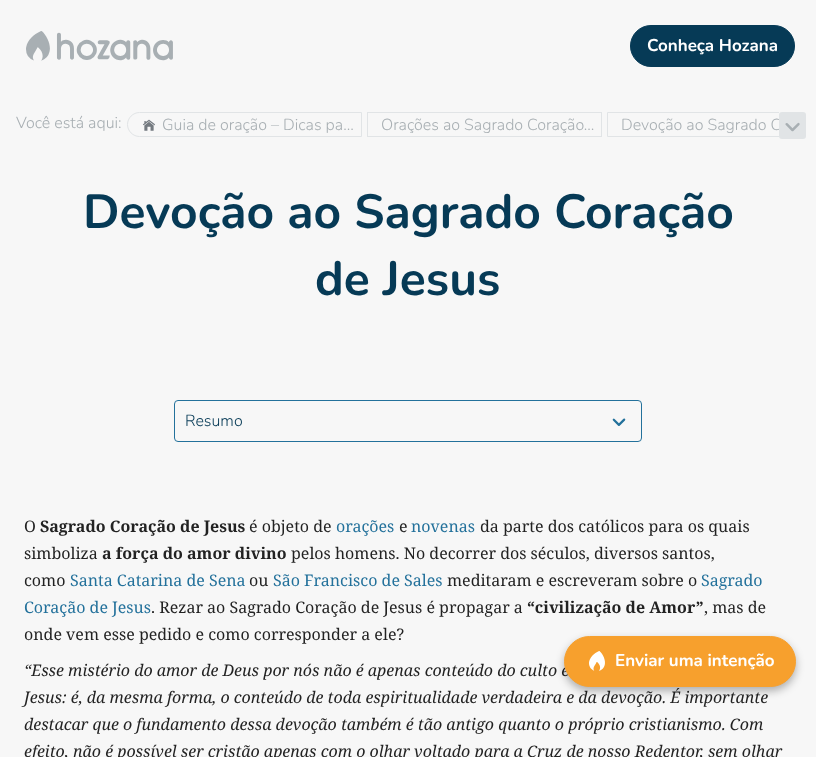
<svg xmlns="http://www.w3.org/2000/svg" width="816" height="757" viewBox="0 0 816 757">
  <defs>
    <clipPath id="clip1"><rect x="0" y="112" width="779" height="27"/></clipPath>
    <filter id="blur1" x="-50%" y="-200%" width="200%" height="500%"><feGaussianBlur stdDeviation="4"/></filter>
  </defs>
  <rect width="100%" height="100%" fill="#f7f7f7"/>
  <image x="26" y="31" width="147" height="30" href="img1.png"/>
  <rect x="630.5" y="25.5" width="164" height="41" rx="20.5" fill="#063a56" stroke="#063a56"/>
  <text x="647" y="51" font-family="Nunito" font-size="17" font-weight="bold" fill="#ffffff">Conheça Hozana</text>
  <text x="16" y="128" font-family="Nunito" font-size="16" font-weight="300" fill="#a8afb3">Você está aqui:</text>
  <path d="M139.5 112.5H361.5V136.5H139.5C133 136.5 127.5 131 127.5 124.5C127.5 118 133 112.5 139.5 112.5Z" fill="none" stroke="#e1e4e6"/>
  <image x="143" y="119" width="12" height="12" href="img2.png"/>
  <text x="162" y="130" font-family="Nunito" font-size="16" font-weight="300" fill="#a8afb3">Guia de oração – Dicas pa…</text>
  <rect x="367.5" y="112.5" width="234" height="24" fill="none" stroke="#e1e4e6"/>
  <text x="381" y="130" font-family="Nunito" font-size="16" font-weight="300" fill="#a8afb3">Orações ao Sagrado Coração…</text>
  <g clip-path="url(#clip1)">
    <path d="M607.5 112.5H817.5C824 112.5 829.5 118 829.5 124.5C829.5 131 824 136.5 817.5 136.5H607.5Z" fill="none" stroke="#e1e4e6"/>
  </g>
  <text x="621" y="130" font-family="Nunito" font-size="16" font-weight="300" fill="#a8afb3">Devoção ao Sagrado C</text>
  <rect x="779" y="112" width="27" height="27" rx="3" fill="#e1e4e6"/>
  <image x="785" y="122" width="15" height="10" href="img3.png"/>
  <text x="83" y="228" font-family="Nunito" font-size="48" font-weight="bold" fill="#063a56">Devoção ao Sagrado Coração</text>
  <text x="315" y="295" font-family="Nunito" font-size="48" font-weight="bold" fill="#063a56">de Jesus</text>
  <rect x="174.5" y="400.5" width="467" height="41" rx="3.5" fill="none" stroke="#23719b"/>
  <text x="185" y="426" font-family="Nunito" font-size="16" font-weight="300" fill="#063a56">Resumo</text>
  <image x="612" y="418" width="14" height="8" href="img4.png"/>
  <text x="24" y="532" font-family="Noto Serif" font-size="16" fill="#222222">O</text>
  <text x="40" y="532" font-family="Noto Serif" font-size="16" font-weight="bold" fill="#222222">Sagrado Coração de Jesus</text>
  <text x="249" y="532" font-family="Noto Serif" font-size="16" fill="#222222">é objeto de</text>
  <text x="336" y="532" font-family="Noto Serif" font-size="16" fill="#23719b">orações</text>
  <text x="399" y="532" font-family="Noto Serif" font-size="16" fill="#222222">e</text>
  <text x="411" y="532" font-family="Noto Serif" font-size="16" fill="#23719b">novenas</text>
  <text x="480" y="532" font-family="Noto Serif" font-size="16" fill="#222222">da parte dos católicos para os quais</text>
  <text x="24" y="559" font-family="Noto Serif" font-size="16" fill="#222222">simboliza</text>
  <text x="102" y="559" font-family="Noto Serif" font-size="16" font-weight="bold" fill="#222222">a força do amor divino</text>
  <text x="291" y="559" font-family="Noto Serif" font-size="16" fill="#222222">pelos homens. No decorrer dos séculos, diversos santos,</text>
  <text x="24" y="586" font-family="Noto Serif" font-size="16" fill="#222222">como</text>
  <text x="70" y="586" font-family="Noto Serif" font-size="16" fill="#23719b">Santa Catarina de Sena</text>
  <text x="249" y="586" font-family="Noto Serif" font-size="16" fill="#222222">ou</text>
  <text x="273" y="586" font-family="Noto Serif" font-size="16" fill="#23719b">São Francisco de Sales</text>
  <text x="447" y="586" font-family="Noto Serif" font-size="16" fill="#222222">meditaram e escreveram sobre o</text>
  <text x="701" y="586" font-family="Noto Serif" font-size="16" fill="#23719b">Sagrado</text>
  <text x="24" y="613" font-family="Noto Serif" font-size="16" fill="#23719b">Coração de Jesus</text>
  <text x="151" y="613" font-family="Noto Serif" font-size="16" fill="#222222">. Rezar ao Sagrado Coração de Jesus é propagar a</text>
  <text x="527" y="613" font-family="Noto Serif" font-size="16" font-weight="bold" fill="#222222">“civilização de Amor”</text>
  <text x="704" y="613" font-family="Noto Serif" font-size="16" fill="#222222">, mas de</text>
  <text x="24" y="640" font-family="Noto Serif" font-size="16" fill="#222222">onde vem esse pedido e como corresponder a ele?</text>
  <text x="24" y="676" font-family="Noto Serif" font-size="16" font-style="italic" fill="#222222">“Esse mistério do amor de Deus por nós não é apenas conteúdo do culto e</text>
  <text x="24" y="703" font-family="Noto Serif" font-size="16" font-style="italic" fill="#222222">Jesus: é, da mesma forma, o conteúdo de toda espiritualidade verdadeira e da devoção. É importante</text>
  <text x="24" y="730" font-family="Noto Serif" font-size="16" font-style="italic" fill="#222222">destacar que o fundamento dessa devoção também é tão antigo quanto o próprio cristianismo. Com</text>
  <text x="24" y="757" font-family="Noto Serif" font-size="16" font-style="italic" fill="#222222">efeito, não é possível ser cristão apenas com o olhar voltado para a Cruz de nosso Redentor, sem olhar</text>
  <rect x="564" y="640" width="232" height="51" rx="25.5" fill="#000000" fill-opacity="0.3" filter="url(#blur1)"/>
  <rect x="564.5" y="636.5" width="231" height="50" rx="25" fill="#f7a02d" stroke="#f7a02d"/>
  <image x="589" y="651" width="16" height="20" href="img5.png"/>
  <text x="615" y="666" font-family="Nunito" font-size="17" font-weight="bold" fill="#ffffff">Enviar uma intenção</text>
</svg>
